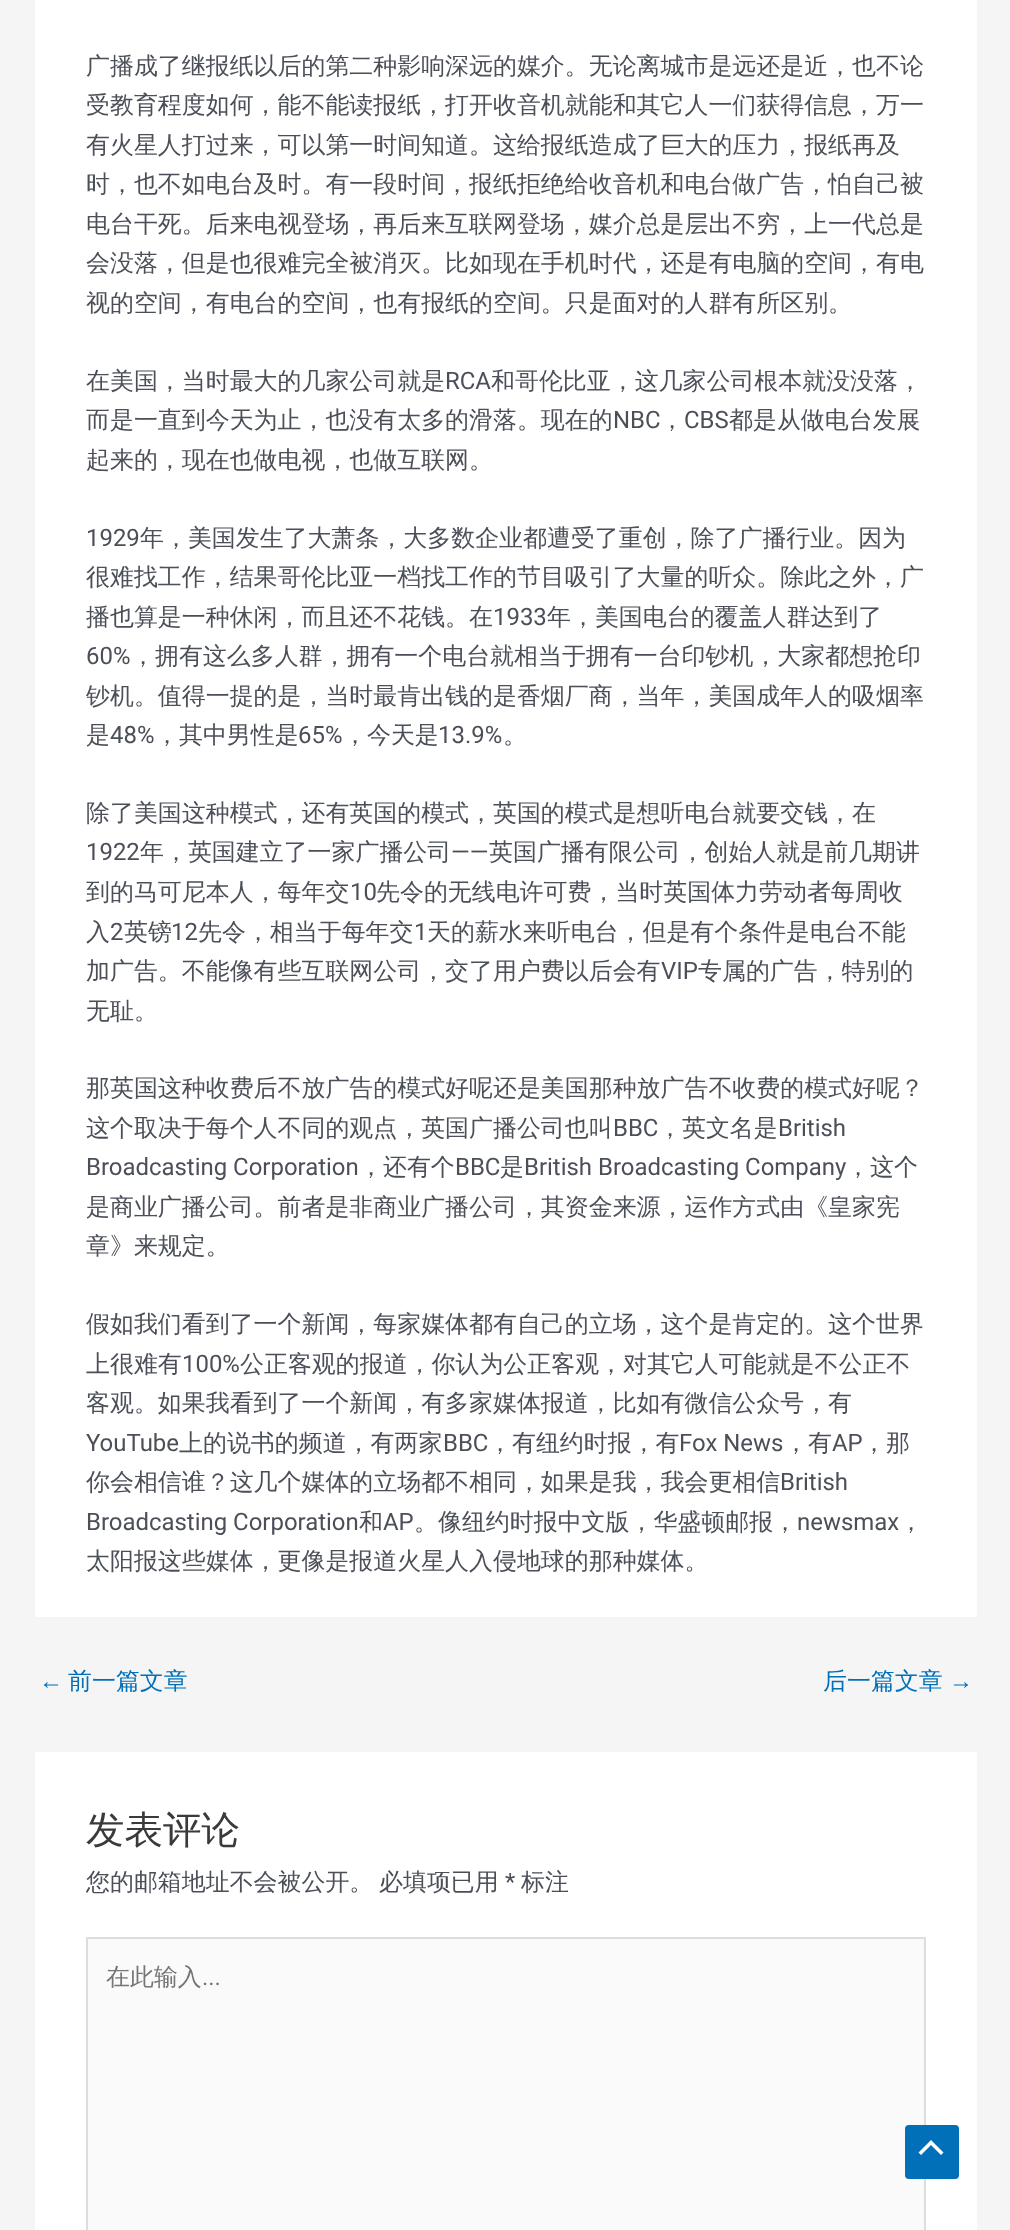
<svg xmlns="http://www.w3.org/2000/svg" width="1010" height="2230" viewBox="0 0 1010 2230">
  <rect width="100%" height="100%" fill="#f5f5f5"/>
  <rect x="35" y="0" width="942" height="1617" fill="#ffffff"/>
  <text x="86" y="74" font-family="WenQuanYi Zen Hei" font-size="23.95" font-weight="500" fill="#4b4f58">广播成了继报纸以后的第二种影响深远的媒介。无论离城市是远还是近，也不论</text>
  <text x="86" y="113" font-family="WenQuanYi Zen Hei" font-size="23.95" font-weight="500" fill="#4b4f58">受教育程度如何，能不能读报纸，打开收音机就能和其它人一们获得信息，万一</text>
  <text x="86" y="153" font-family="WenQuanYi Zen Hei" font-size="23.95" font-weight="500" fill="#4b4f58">有火星人打过来，可以第一时间知道。这给报纸造成了巨大的压力，报纸再及</text>
  <text x="86" y="192" font-family="WenQuanYi Zen Hei" font-size="23.95" font-weight="500" fill="#4b4f58">时，也不如电台及时。有一段时间，报纸拒绝给收音机和电台做广告，怕自己被</text>
  <text x="86" y="232" font-family="WenQuanYi Zen Hei" font-size="23.95" font-weight="500" fill="#4b4f58">电台干死。后来电视登场，再后来互联网登场，媒介总是层出不穷，上一代总是</text>
  <text x="86" y="271" font-family="WenQuanYi Zen Hei" font-size="23.95" font-weight="500" fill="#4b4f58">会没落，但是也很难完全被消灭。比如现在手机时代，还是有电脑的空间，有电</text>
  <text x="86" y="311" font-family="WenQuanYi Zen Hei" font-size="23.95" font-weight="500" fill="#4b4f58">视的空间，有电台的空间，也有报纸的空间。只是面对的人群有所区别。</text>
  <text x="86" y="389" font-family="WenQuanYi Zen Hei" font-size="23.95" font-weight="500" fill="#4b4f58">在美国，当时最大的几家公司就是</text>
  <text x="445" y="389" font-family="Roboto" font-size="23.95" fill="#4b4f58">RCA</text>
  <text x="491" y="389" font-family="WenQuanYi Zen Hei" font-size="23.95" font-weight="500" fill="#4b4f58">和哥伦比亚，这几家公司根本就没没落，</text>
  <text x="86" y="428" font-family="WenQuanYi Zen Hei" font-size="23.95" font-weight="500" fill="#4b4f58">而是一直到今天为止，也没有太多的滑落。现在的</text>
  <text x="613" y="428" font-family="Roboto" font-size="23.95" fill="#4b4f58">NBC</text>
  <text x="660" y="428" font-family="WenQuanYi Zen Hei" font-size="23.95" font-weight="500" fill="#4b4f58">，</text>
  <text x="684" y="428" font-family="Roboto" font-size="23.95" fill="#4b4f58">CBS</text>
  <text x="729" y="428" font-family="WenQuanYi Zen Hei" font-size="23.95" font-weight="500" fill="#4b4f58">都是从做电台发展</text>
  <text x="86" y="468" font-family="WenQuanYi Zen Hei" font-size="23.95" font-weight="500" fill="#4b4f58">起来的，现在也做电视，也做互联网。</text>
  <text x="86" y="546" font-family="Roboto" font-size="23.95" fill="#4b4f58">1929</text>
  <text x="140" y="546" font-family="WenQuanYi Zen Hei" font-size="23.95" font-weight="500" fill="#4b4f58">年，美国发生了大萧条，大多数企业都遭受了重创，除了广播行业。因为</text>
  <text x="86" y="585" font-family="WenQuanYi Zen Hei" font-size="23.95" font-weight="500" fill="#4b4f58">很难找工作，结果哥伦比亚一档找工作的节目吸引了大量的听众。除此之外，广</text>
  <text x="86" y="625" font-family="WenQuanYi Zen Hei" font-size="23.95" font-weight="500" fill="#4b4f58">播也算是一种休闲，而且还不花钱。在</text>
  <text x="493" y="625" font-family="Roboto" font-size="23.95" fill="#4b4f58">1933</text>
  <text x="547" y="625" font-family="WenQuanYi Zen Hei" font-size="23.95" font-weight="500" fill="#4b4f58">年，美国电台的覆盖人群达到了</text>
  <text x="86" y="664" font-family="Roboto" font-size="23.95" fill="#4b4f58">60%</text>
  <text x="131" y="664" font-family="WenQuanYi Zen Hei" font-size="23.95" font-weight="500" fill="#4b4f58">，拥有这么多人群，拥有一个电台就相当于拥有一台印钞机，大家都想抢印</text>
  <text x="86" y="704" font-family="WenQuanYi Zen Hei" font-size="23.95" font-weight="500" fill="#4b4f58">钞机。值得一提的是，当时最肯出钱的是香烟厂商，当年，美国成年人的吸烟率</text>
  <text x="86" y="743" font-family="WenQuanYi Zen Hei" font-size="23.95" font-weight="500" fill="#4b4f58">是</text>
  <text x="110" y="743" font-family="Roboto" font-size="23.95" fill="#4b4f58">48%</text>
  <text x="155" y="743" font-family="WenQuanYi Zen Hei" font-size="23.95" font-weight="500" fill="#4b4f58">，其中男性是</text>
  <text x="298" y="743" font-family="Roboto" font-size="23.95" fill="#4b4f58">65%</text>
  <text x="343" y="743" font-family="WenQuanYi Zen Hei" font-size="23.95" font-weight="500" fill="#4b4f58">，今天是</text>
  <text x="438" y="743" font-family="Roboto" font-size="23.95" fill="#4b4f58">13.9%</text>
  <text x="503" y="743" font-family="WenQuanYi Zen Hei" font-size="23.95" font-weight="500" fill="#4b4f58">。</text>
  <text x="86" y="821" font-family="WenQuanYi Zen Hei" font-size="23.95" font-weight="500" fill="#4b4f58">除了美国这种模式，还有英国的模式，英国的模式是想听电台就要交钱，在</text>
  <text x="86" y="860" font-family="Roboto" font-size="23.95" fill="#4b4f58">1922</text>
  <text x="140" y="860" font-family="WenQuanYi Zen Hei" font-size="23.95" font-weight="500" fill="#4b4f58">年，英国建立了一家广播公司</text>
  <text x="451" y="860" font-family="Roboto" font-size="23.95" fill="#4b4f58">——</text>
  <text x="489" y="860" font-family="WenQuanYi Zen Hei" font-size="23.95" font-weight="500" fill="#4b4f58">英国广播有限公司，创始人就是前几期讲</text>
  <text x="86" y="900" font-family="WenQuanYi Zen Hei" font-size="23.95" font-weight="500" fill="#4b4f58">到的马可尼本人，每年交</text>
  <text x="350" y="900" font-family="Roboto" font-size="23.95" fill="#4b4f58">10</text>
  <text x="376" y="900" font-family="WenQuanYi Zen Hei" font-size="23.95" font-weight="500" fill="#4b4f58">先令的无线电许可费，当时英国体力劳动者每周收</text>
  <text x="86" y="940" font-family="WenQuanYi Zen Hei" font-size="23.95" font-weight="500" fill="#4b4f58">入</text>
  <text x="110" y="940" font-family="Roboto" font-size="23.95" fill="#4b4f58">2</text>
  <text x="124" y="940" font-family="WenQuanYi Zen Hei" font-size="23.95" font-weight="500" fill="#4b4f58">英镑</text>
  <text x="171" y="940" font-family="Roboto" font-size="23.95" fill="#4b4f58">12</text>
  <text x="198" y="940" font-family="WenQuanYi Zen Hei" font-size="23.95" font-weight="500" fill="#4b4f58">先令，相当于每年交</text>
  <text x="414" y="940" font-family="Roboto" font-size="23.95" fill="#4b4f58">1</text>
  <text x="427" y="940" font-family="WenQuanYi Zen Hei" font-size="23.95" font-weight="500" fill="#4b4f58">天的薪水来听电台，但是有个条件是电台不能</text>
  <text x="86" y="979" font-family="WenQuanYi Zen Hei" font-size="23.95" font-weight="500" fill="#4b4f58">加广告。不能像有些互联网公司，交了用户费以后会有</text>
  <text x="661" y="979" font-family="Roboto" font-size="23.95" fill="#4b4f58">VIP</text>
  <text x="698" y="979" font-family="WenQuanYi Zen Hei" font-size="23.95" font-weight="500" fill="#4b4f58">专属的广告，特别的</text>
  <text x="86" y="1019" font-family="WenQuanYi Zen Hei" font-size="23.95" font-weight="500" fill="#4b4f58">无耻。</text>
  <text x="86" y="1096" font-family="WenQuanYi Zen Hei" font-size="23.95" font-weight="500" fill="#4b4f58">那英国这种收费后不放广告的模式好呢还是美国那种放广告不收费的模式好呢？</text>
  <text x="86" y="1136" font-family="WenQuanYi Zen Hei" font-size="23.95" font-weight="500" fill="#4b4f58">这个取决于每个人不同的观点，英国广播公司也叫</text>
  <text x="613" y="1136" font-family="Roboto" font-size="23.95" fill="#4b4f58">BBC</text>
  <text x="658" y="1136" font-family="WenQuanYi Zen Hei" font-size="23.95" font-weight="500" fill="#4b4f58">，英文名是</text>
  <text x="778" y="1136" font-family="Roboto" font-size="23.95" fill="#4b4f58">British</text>
  <text x="86" y="1175" font-family="Roboto" font-size="23.95" fill="#4b4f58">Broadcasting Corporation</text>
  <text x="359" y="1175" font-family="WenQuanYi Zen Hei" font-size="23.95" font-weight="500" fill="#4b4f58">，还有个</text>
  <text x="455" y="1175" font-family="Roboto" font-size="23.95" fill="#4b4f58">BBC</text>
  <text x="500" y="1175" font-family="WenQuanYi Zen Hei" font-size="23.95" font-weight="500" fill="#4b4f58">是</text>
  <text x="524" y="1175" font-family="Roboto" font-size="23.95" fill="#4b4f58">British Broadcasting Company</text>
  <text x="846" y="1175" font-family="WenQuanYi Zen Hei" font-size="23.95" font-weight="500" fill="#4b4f58">，这个</text>
  <text x="86" y="1215" font-family="WenQuanYi Zen Hei" font-size="23.95" font-weight="500" fill="#4b4f58">是商业广播公司。前者是非商业广播公司，其资金来源，运作方式由《皇家宪</text>
  <text x="86" y="1254" font-family="WenQuanYi Zen Hei" font-size="23.95" font-weight="500" fill="#4b4f58">章》来规定。</text>
  <text x="86" y="1332" font-family="WenQuanYi Zen Hei" font-size="23.95" font-weight="500" fill="#4b4f58">假如我们看到了一个新闻，每家媒体都有自己的立场，这个是肯定的。这个世界</text>
  <text x="86" y="1372" font-family="WenQuanYi Zen Hei" font-size="23.95" font-weight="500" fill="#4b4f58">上很难有</text>
  <text x="182" y="1372" font-family="Roboto" font-size="23.95" fill="#4b4f58">100%</text>
  <text x="240" y="1372" font-family="WenQuanYi Zen Hei" font-size="23.95" font-weight="500" fill="#4b4f58">公正客观的报道，你认为公正客观，对其它人可能就是不公正不</text>
  <text x="86" y="1411" font-family="WenQuanYi Zen Hei" font-size="23.95" font-weight="500" fill="#4b4f58">客观。如果我看到了一个新闻，有多家媒体报道，比如有微信公众号，有</text>
  <text x="86" y="1451" font-family="Roboto" font-size="23.95" fill="#4b4f58">YouTube</text>
  <text x="179" y="1451" font-family="WenQuanYi Zen Hei" font-size="23.95" font-weight="500" fill="#4b4f58">上的说书的频道，有两家</text>
  <text x="443" y="1451" font-family="Roboto" font-size="23.95" fill="#4b4f58">BBC</text>
  <text x="488" y="1451" font-family="WenQuanYi Zen Hei" font-size="23.95" font-weight="500" fill="#4b4f58">，有纽约时报，有</text>
  <text x="679" y="1451" font-family="Roboto" font-size="23.95" fill="#4b4f58">Fox News</text>
  <text x="784" y="1451" font-family="WenQuanYi Zen Hei" font-size="23.95" font-weight="500" fill="#4b4f58">，有</text>
  <text x="832" y="1451" font-family="Roboto" font-size="23.95" fill="#4b4f58">AP</text>
  <text x="862" y="1451" font-family="WenQuanYi Zen Hei" font-size="23.95" font-weight="500" fill="#4b4f58">，那</text>
  <text x="86" y="1490" font-family="WenQuanYi Zen Hei" font-size="23.95" font-weight="500" fill="#4b4f58">你会相信谁？这几个媒体的立场都不相同，如果是我，我会更相信</text>
  <text x="780" y="1490" font-family="Roboto" font-size="23.95" fill="#4b4f58">British</text>
  <text x="86" y="1530" font-family="Roboto" font-size="23.95" fill="#4b4f58">Broadcasting Corporation</text>
  <text x="359" y="1530" font-family="WenQuanYi Zen Hei" font-size="23.95" font-weight="500" fill="#4b4f58">和</text>
  <text x="383" y="1530" font-family="Roboto" font-size="23.95" fill="#4b4f58">AP</text>
  <text x="414" y="1530" font-family="WenQuanYi Zen Hei" font-size="23.95" font-weight="500" fill="#4b4f58">。像纽约时报中文版，华盛顿邮报，</text>
  <text x="797" y="1530" font-family="Roboto" font-size="23.95" fill="#4b4f58">newsmax</text>
  <text x="899" y="1530" font-family="WenQuanYi Zen Hei" font-size="23.95" font-weight="500" fill="#4b4f58">，</text>
  <text x="86" y="1569" font-family="WenQuanYi Zen Hei" font-size="23.95" font-weight="500" fill="#4b4f58">太阳报这些媒体，更像是报道火星人入侵地球的那种媒体。</text>
  <text x="39" y="1689" font-family="Liberation Sans" font-size="23.95" fill="#0170b9">←</text>
  <text x="68" y="1689" font-family="WenQuanYi Zen Hei" font-size="23.95" font-weight="500" fill="#0170b9">前一篇文章</text>
  <text x="823" y="1689" font-family="WenQuanYi Zen Hei" font-size="23.95" font-weight="500" fill="#0170b9">后一篇文章</text>
  <text x="949" y="1689" font-family="Liberation Sans" font-size="23.95" fill="#0170b9">→</text>
  <rect x="35" y="1752" width="942" height="478" fill="#ffffff"/>
  <text x="86" y="1843" font-family="WenQuanYi Zen Hei" font-size="38.5" font-weight="500" fill="#3a3a3a">发表评论</text>
  <text x="86" y="1890" font-family="WenQuanYi Zen Hei" font-size="23.95" font-weight="500" fill="#4b4f58">您的邮箱地址不会被公开。</text>
  <text x="379" y="1890" font-family="WenQuanYi Zen Hei" font-size="23.95" font-weight="500" fill="#4b4f58">必填项已用</text>
  <text x="505" y="1890" font-family="Roboto" font-size="23.95" fill="#4b4f58">*</text>
  <text x="521" y="1890" font-family="WenQuanYi Zen Hei" font-size="23.95" font-weight="500" fill="#4b4f58">标注</text>
  <rect x="87" y="1938" width="838" height="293" fill="#fafafa" stroke="#dddddd" stroke-width="2"/>
  <text x="106" y="1985" font-family="WenQuanYi Zen Hei" font-size="23.95" font-weight="500" fill="#757575">在此输入</text>
  <text x="202" y="1985" font-family="Roboto" font-size="23.95" fill="#757575">...</text>
  <rect x="905" y="2125" width="54" height="54" rx="4" fill="#0170b9"/>
  <path d="M943.5 2152.5L931 2140L918.5 2152.5L921 2155L931 2145L941 2155Z" fill="#ffffff"/>
</svg>
